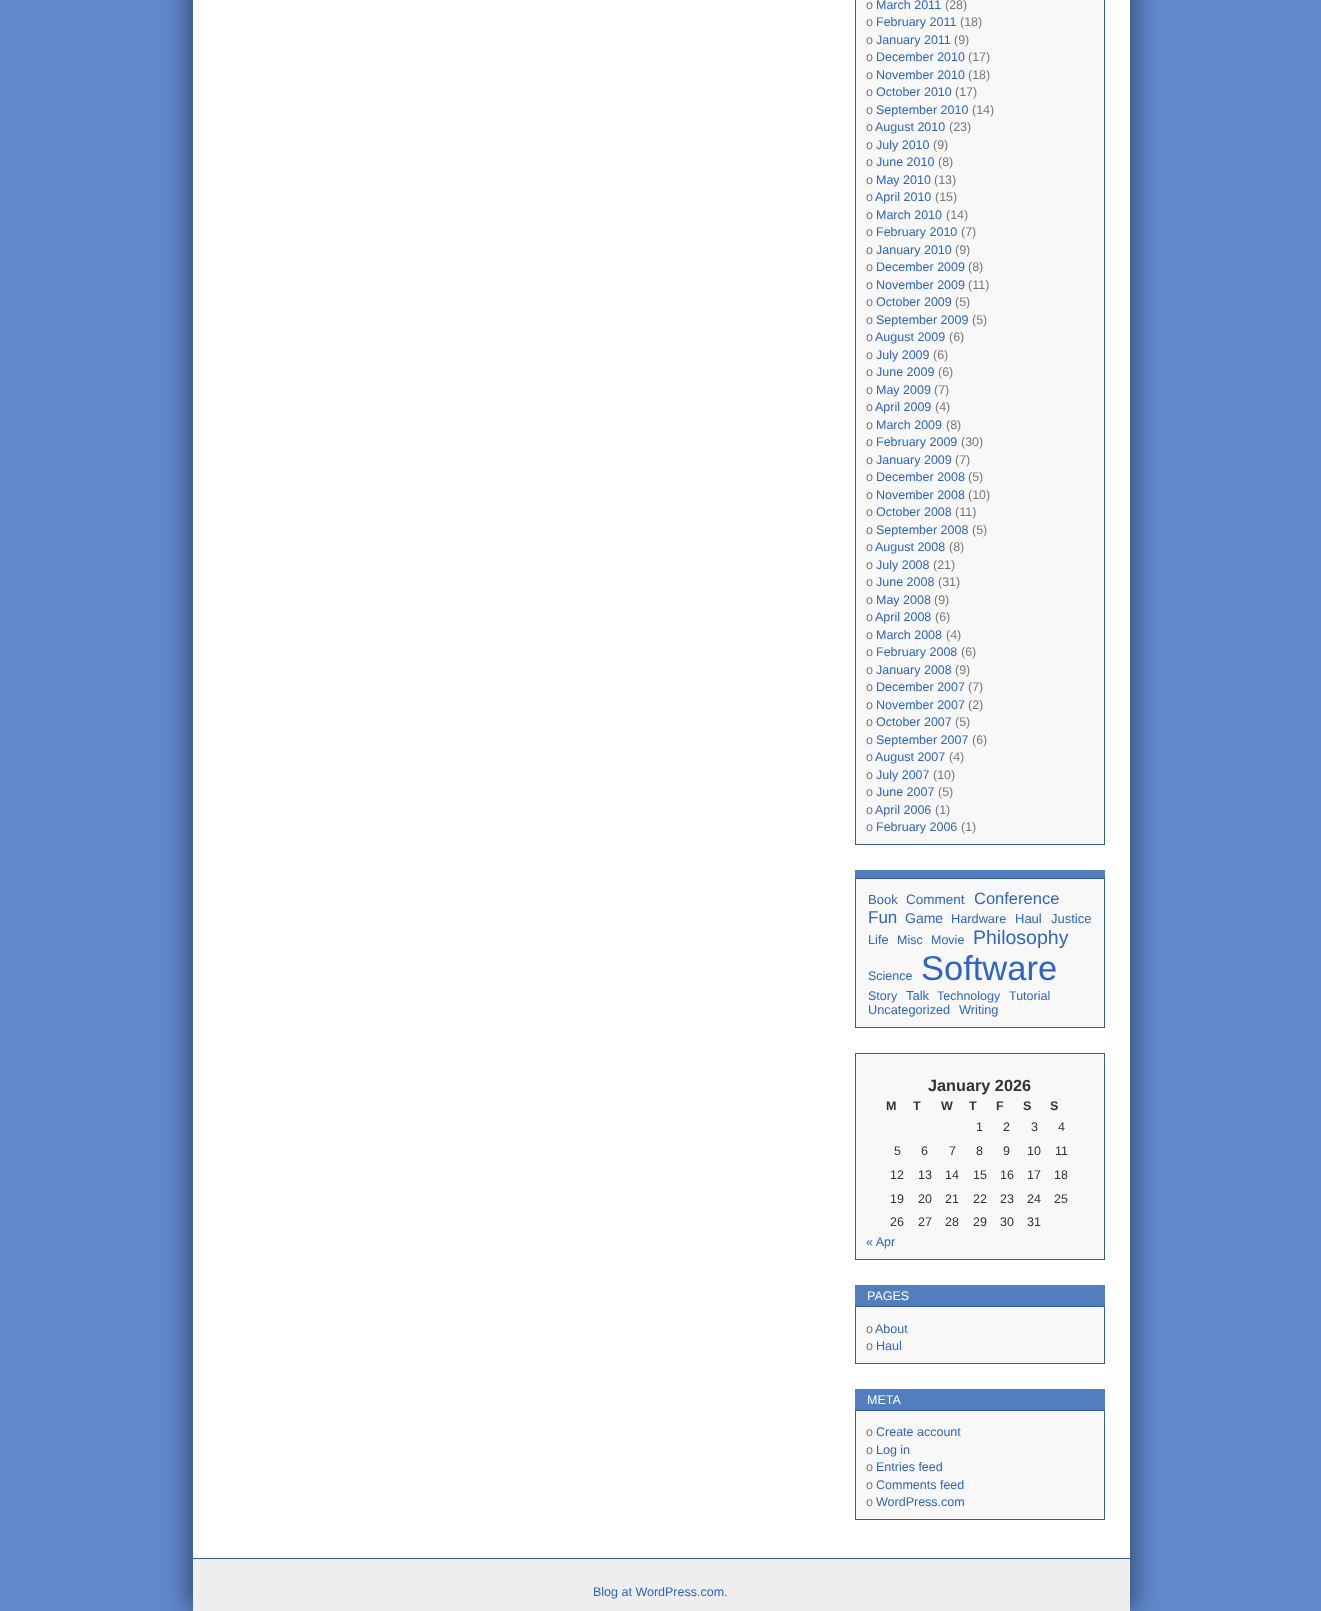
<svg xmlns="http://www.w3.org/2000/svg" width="1321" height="1611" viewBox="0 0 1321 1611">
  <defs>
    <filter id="blur1" x="-50%" y="-200%" width="200%" height="500%"><feGaussianBlur stdDeviation="10"/></filter>
  </defs>
  <rect width="100%" height="100%" fill="#6188cd"/>
  <rect x="183" y="-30" width="937" height="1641" fill="#000000" fill-opacity="0.3" filter="url(#blur1)"/>
  <rect x="203" y="-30" width="937" height="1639" fill="#000000" fill-opacity="0.3" filter="url(#blur1)"/>
  <rect x="193" y="0" width="937" height="1558" fill="#ffffff"/>
  <rect x="855.5" y="-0.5" width="249" height="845" fill="#f8f8f8" stroke="#375e94"/>
  <text x="866" y="9" font-family="Liberation Sans" font-size="12.5" fill="#777777">o</text>
  <text x="876" y="9" font-family="Liberation Sans" font-size="12.5" fill="#2f64c5">March 2011</text>
  <text x="945" y="9" font-family="Liberation Sans" font-size="12.5" fill="#777777">(28)</text>
  <text x="866" y="26" font-family="Liberation Sans" font-size="12.5" fill="#777777">o</text>
  <text x="876" y="26" font-family="Liberation Sans" font-size="12.5" fill="#2f64c5">February 2011</text>
  <text x="960" y="26" font-family="Liberation Sans" font-size="12.5" fill="#777777">(18)</text>
  <text x="866" y="44" font-family="Liberation Sans" font-size="12.5" fill="#777777">o</text>
  <text x="876" y="44" font-family="Liberation Sans" font-size="12.5" fill="#2f64c5">January 2011</text>
  <text x="954" y="44" font-family="Liberation Sans" font-size="12.5" fill="#777777">(9)</text>
  <text x="866" y="61" font-family="Liberation Sans" font-size="12.5" fill="#777777">o</text>
  <text x="876" y="61" font-family="Liberation Sans" font-size="12.5" fill="#2f64c5">December 2010</text>
  <text x="968" y="61" font-family="Liberation Sans" font-size="12.5" fill="#777777">(17)</text>
  <text x="866" y="79" font-family="Liberation Sans" font-size="12.5" fill="#777777">o</text>
  <text x="876" y="79" font-family="Liberation Sans" font-size="12.5" fill="#2f64c5">November 2010</text>
  <text x="968" y="79" font-family="Liberation Sans" font-size="12.5" fill="#777777">(18)</text>
  <text x="866" y="96" font-family="Liberation Sans" font-size="12.5" fill="#777777">o</text>
  <text x="876" y="96" font-family="Liberation Sans" font-size="12.5" fill="#2f64c5">October 2010</text>
  <text x="955" y="96" font-family="Liberation Sans" font-size="12.5" fill="#777777">(17)</text>
  <text x="866" y="114" font-family="Liberation Sans" font-size="12.5" fill="#777777">o</text>
  <text x="876" y="114" font-family="Liberation Sans" font-size="12.5" fill="#2f64c5">September 2010</text>
  <text x="972" y="114" font-family="Liberation Sans" font-size="12.5" fill="#777777">(14)</text>
  <text x="866" y="131" font-family="Liberation Sans" font-size="12.5" fill="#777777">o</text>
  <text x="875" y="131" font-family="Liberation Sans" font-size="12.5" fill="#2f64c5">August 2010</text>
  <text x="949" y="131" font-family="Liberation Sans" font-size="12.5" fill="#777777">(23)</text>
  <text x="866" y="149" font-family="Liberation Sans" font-size="12.5" fill="#777777">o</text>
  <text x="876" y="149" font-family="Liberation Sans" font-size="12.5" fill="#2f64c5">July 2010</text>
  <text x="933" y="149" font-family="Liberation Sans" font-size="12.5" fill="#777777">(9)</text>
  <text x="866" y="166" font-family="Liberation Sans" font-size="12.5" fill="#777777">o</text>
  <text x="876" y="166" font-family="Liberation Sans" font-size="12.5" fill="#2f64c5">June 2010</text>
  <text x="938" y="166" font-family="Liberation Sans" font-size="12.5" fill="#777777">(8)</text>
  <text x="866" y="184" font-family="Liberation Sans" font-size="12.5" fill="#777777">o</text>
  <text x="876" y="184" font-family="Liberation Sans" font-size="12.5" fill="#2f64c5">May 2010</text>
  <text x="934" y="184" font-family="Liberation Sans" font-size="12.5" fill="#777777">(13)</text>
  <text x="866" y="201" font-family="Liberation Sans" font-size="12.5" fill="#777777">o</text>
  <text x="875" y="201" font-family="Liberation Sans" font-size="12.5" fill="#2f64c5">April 2010</text>
  <text x="935" y="201" font-family="Liberation Sans" font-size="12.5" fill="#777777">(15)</text>
  <text x="866" y="219" font-family="Liberation Sans" font-size="12.5" fill="#777777">o</text>
  <text x="876" y="219" font-family="Liberation Sans" font-size="12.5" fill="#2f64c5">March 2010</text>
  <text x="946" y="219" font-family="Liberation Sans" font-size="12.5" fill="#777777">(14)</text>
  <text x="866" y="236" font-family="Liberation Sans" font-size="12.5" fill="#777777">o</text>
  <text x="876" y="236" font-family="Liberation Sans" font-size="12.5" fill="#2f64c5">February 2010</text>
  <text x="961" y="236" font-family="Liberation Sans" font-size="12.5" fill="#777777">(7)</text>
  <text x="866" y="254" font-family="Liberation Sans" font-size="12.5" fill="#777777">o</text>
  <text x="876" y="254" font-family="Liberation Sans" font-size="12.5" fill="#2f64c5">January 2010</text>
  <text x="955" y="254" font-family="Liberation Sans" font-size="12.5" fill="#777777">(9)</text>
  <text x="866" y="271" font-family="Liberation Sans" font-size="12.5" fill="#777777">o</text>
  <text x="876" y="271" font-family="Liberation Sans" font-size="12.5" fill="#2f64c5">December 2009</text>
  <text x="968" y="271" font-family="Liberation Sans" font-size="12.5" fill="#777777">(8)</text>
  <text x="866" y="289" font-family="Liberation Sans" font-size="12.5" fill="#777777">o</text>
  <text x="876" y="289" font-family="Liberation Sans" font-size="12.5" fill="#2f64c5">November 2009</text>
  <text x="968" y="289" font-family="Liberation Sans" font-size="12.5" fill="#777777">(11)</text>
  <text x="866" y="306" font-family="Liberation Sans" font-size="12.5" fill="#777777">o</text>
  <text x="876" y="306" font-family="Liberation Sans" font-size="12.5" fill="#2f64c5">October 2009</text>
  <text x="955" y="306" font-family="Liberation Sans" font-size="12.5" fill="#777777">(5)</text>
  <text x="866" y="324" font-family="Liberation Sans" font-size="12.5" fill="#777777">o</text>
  <text x="876" y="324" font-family="Liberation Sans" font-size="12.5" fill="#2f64c5">September 2009</text>
  <text x="972" y="324" font-family="Liberation Sans" font-size="12.5" fill="#777777">(5)</text>
  <text x="866" y="341" font-family="Liberation Sans" font-size="12.5" fill="#777777">o</text>
  <text x="875" y="341" font-family="Liberation Sans" font-size="12.5" fill="#2f64c5">August 2009</text>
  <text x="949" y="341" font-family="Liberation Sans" font-size="12.5" fill="#777777">(6)</text>
  <text x="866" y="359" font-family="Liberation Sans" font-size="12.5" fill="#777777">o</text>
  <text x="876" y="359" font-family="Liberation Sans" font-size="12.5" fill="#2f64c5">July 2009</text>
  <text x="933" y="359" font-family="Liberation Sans" font-size="12.5" fill="#777777">(6)</text>
  <text x="866" y="376" font-family="Liberation Sans" font-size="12.5" fill="#777777">o</text>
  <text x="876" y="376" font-family="Liberation Sans" font-size="12.5" fill="#2f64c5">June 2009</text>
  <text x="938" y="376" font-family="Liberation Sans" font-size="12.5" fill="#777777">(6)</text>
  <text x="866" y="394" font-family="Liberation Sans" font-size="12.5" fill="#777777">o</text>
  <text x="876" y="394" font-family="Liberation Sans" font-size="12.5" fill="#2f64c5">May 2009</text>
  <text x="934" y="394" font-family="Liberation Sans" font-size="12.5" fill="#777777">(7)</text>
  <text x="866" y="411" font-family="Liberation Sans" font-size="12.5" fill="#777777">o</text>
  <text x="875" y="411" font-family="Liberation Sans" font-size="12.5" fill="#2f64c5">April 2009</text>
  <text x="935" y="411" font-family="Liberation Sans" font-size="12.5" fill="#777777">(4)</text>
  <text x="866" y="429" font-family="Liberation Sans" font-size="12.5" fill="#777777">o</text>
  <text x="876" y="429" font-family="Liberation Sans" font-size="12.5" fill="#2f64c5">March 2009</text>
  <text x="946" y="429" font-family="Liberation Sans" font-size="12.5" fill="#777777">(8)</text>
  <text x="866" y="446" font-family="Liberation Sans" font-size="12.5" fill="#777777">o</text>
  <text x="876" y="446" font-family="Liberation Sans" font-size="12.5" fill="#2f64c5">February 2009</text>
  <text x="961" y="446" font-family="Liberation Sans" font-size="12.5" fill="#777777">(30)</text>
  <text x="866" y="464" font-family="Liberation Sans" font-size="12.5" fill="#777777">o</text>
  <text x="876" y="464" font-family="Liberation Sans" font-size="12.5" fill="#2f64c5">January 2009</text>
  <text x="955" y="464" font-family="Liberation Sans" font-size="12.5" fill="#777777">(7)</text>
  <text x="866" y="481" font-family="Liberation Sans" font-size="12.5" fill="#777777">o</text>
  <text x="876" y="481" font-family="Liberation Sans" font-size="12.5" fill="#2f64c5">December 2008</text>
  <text x="968" y="481" font-family="Liberation Sans" font-size="12.5" fill="#777777">(5)</text>
  <text x="866" y="499" font-family="Liberation Sans" font-size="12.5" fill="#777777">o</text>
  <text x="876" y="499" font-family="Liberation Sans" font-size="12.5" fill="#2f64c5">November 2008</text>
  <text x="968" y="499" font-family="Liberation Sans" font-size="12.5" fill="#777777">(10)</text>
  <text x="866" y="516" font-family="Liberation Sans" font-size="12.5" fill="#777777">o</text>
  <text x="876" y="516" font-family="Liberation Sans" font-size="12.5" fill="#2f64c5">October 2008</text>
  <text x="955" y="516" font-family="Liberation Sans" font-size="12.5" fill="#777777">(11)</text>
  <text x="866" y="534" font-family="Liberation Sans" font-size="12.5" fill="#777777">o</text>
  <text x="876" y="534" font-family="Liberation Sans" font-size="12.5" fill="#2f64c5">September 2008</text>
  <text x="972" y="534" font-family="Liberation Sans" font-size="12.5" fill="#777777">(5)</text>
  <text x="866" y="551" font-family="Liberation Sans" font-size="12.5" fill="#777777">o</text>
  <text x="875" y="551" font-family="Liberation Sans" font-size="12.5" fill="#2f64c5">August 2008</text>
  <text x="949" y="551" font-family="Liberation Sans" font-size="12.5" fill="#777777">(8)</text>
  <text x="866" y="569" font-family="Liberation Sans" font-size="12.5" fill="#777777">o</text>
  <text x="876" y="569" font-family="Liberation Sans" font-size="12.5" fill="#2f64c5">July 2008</text>
  <text x="933" y="569" font-family="Liberation Sans" font-size="12.5" fill="#777777">(21)</text>
  <text x="866" y="586" font-family="Liberation Sans" font-size="12.5" fill="#777777">o</text>
  <text x="876" y="586" font-family="Liberation Sans" font-size="12.5" fill="#2f64c5">June 2008</text>
  <text x="938" y="586" font-family="Liberation Sans" font-size="12.5" fill="#777777">(31)</text>
  <text x="866" y="604" font-family="Liberation Sans" font-size="12.5" fill="#777777">o</text>
  <text x="876" y="604" font-family="Liberation Sans" font-size="12.5" fill="#2f64c5">May 2008</text>
  <text x="934" y="604" font-family="Liberation Sans" font-size="12.5" fill="#777777">(9)</text>
  <text x="866" y="621" font-family="Liberation Sans" font-size="12.5" fill="#777777">o</text>
  <text x="875" y="621" font-family="Liberation Sans" font-size="12.5" fill="#2f64c5">April 2008</text>
  <text x="935" y="621" font-family="Liberation Sans" font-size="12.5" fill="#777777">(6)</text>
  <text x="866" y="639" font-family="Liberation Sans" font-size="12.5" fill="#777777">o</text>
  <text x="876" y="639" font-family="Liberation Sans" font-size="12.5" fill="#2f64c5">March 2008</text>
  <text x="946" y="639" font-family="Liberation Sans" font-size="12.5" fill="#777777">(4)</text>
  <text x="866" y="656" font-family="Liberation Sans" font-size="12.5" fill="#777777">o</text>
  <text x="876" y="656" font-family="Liberation Sans" font-size="12.5" fill="#2f64c5">February 2008</text>
  <text x="961" y="656" font-family="Liberation Sans" font-size="12.5" fill="#777777">(6)</text>
  <text x="866" y="674" font-family="Liberation Sans" font-size="12.5" fill="#777777">o</text>
  <text x="876" y="674" font-family="Liberation Sans" font-size="12.5" fill="#2f64c5">January 2008</text>
  <text x="955" y="674" font-family="Liberation Sans" font-size="12.5" fill="#777777">(9)</text>
  <text x="866" y="691" font-family="Liberation Sans" font-size="12.5" fill="#777777">o</text>
  <text x="876" y="691" font-family="Liberation Sans" font-size="12.5" fill="#2f64c5">December 2007</text>
  <text x="968" y="691" font-family="Liberation Sans" font-size="12.5" fill="#777777">(7)</text>
  <text x="866" y="709" font-family="Liberation Sans" font-size="12.5" fill="#777777">o</text>
  <text x="876" y="709" font-family="Liberation Sans" font-size="12.5" fill="#2f64c5">November 2007</text>
  <text x="968" y="709" font-family="Liberation Sans" font-size="12.5" fill="#777777">(2)</text>
  <text x="866" y="726" font-family="Liberation Sans" font-size="12.5" fill="#777777">o</text>
  <text x="876" y="726" font-family="Liberation Sans" font-size="12.5" fill="#2f64c5">October 2007</text>
  <text x="955" y="726" font-family="Liberation Sans" font-size="12.5" fill="#777777">(5)</text>
  <text x="866" y="744" font-family="Liberation Sans" font-size="12.5" fill="#777777">o</text>
  <text x="876" y="744" font-family="Liberation Sans" font-size="12.5" fill="#2f64c5">September 2007</text>
  <text x="972" y="744" font-family="Liberation Sans" font-size="12.5" fill="#777777">(6)</text>
  <text x="866" y="761" font-family="Liberation Sans" font-size="12.5" fill="#777777">o</text>
  <text x="875" y="761" font-family="Liberation Sans" font-size="12.5" fill="#2f64c5">August 2007</text>
  <text x="949" y="761" font-family="Liberation Sans" font-size="12.5" fill="#777777">(4)</text>
  <text x="866" y="779" font-family="Liberation Sans" font-size="12.5" fill="#777777">o</text>
  <text x="876" y="779" font-family="Liberation Sans" font-size="12.5" fill="#2f64c5">July 2007</text>
  <text x="933" y="779" font-family="Liberation Sans" font-size="12.5" fill="#777777">(10)</text>
  <text x="866" y="796" font-family="Liberation Sans" font-size="12.5" fill="#777777">o</text>
  <text x="876" y="796" font-family="Liberation Sans" font-size="12.5" fill="#2f64c5">June 2007</text>
  <text x="938" y="796" font-family="Liberation Sans" font-size="12.5" fill="#777777">(5)</text>
  <text x="866" y="814" font-family="Liberation Sans" font-size="12.5" fill="#777777">o</text>
  <text x="875" y="814" font-family="Liberation Sans" font-size="12.5" fill="#2f64c5">April 2006</text>
  <text x="935" y="814" font-family="Liberation Sans" font-size="12.5" fill="#777777">(1)</text>
  <text x="866" y="831" font-family="Liberation Sans" font-size="12.5" fill="#777777">o</text>
  <text x="876" y="831" font-family="Liberation Sans" font-size="12.5" fill="#2f64c5">February 2006</text>
  <text x="961" y="831" font-family="Liberation Sans" font-size="12.5" fill="#777777">(1)</text>
  <rect x="855" y="870" width="250" height="8" fill="#527ebd"/>
  <rect x="855.5" y="878.5" width="249" height="149" fill="#f8f8f8" stroke="#375e94"/>
  <text x="868" y="904" font-family="Liberation Sans" font-size="13" fill="#2f64c5">Book</text>
  <text x="906" y="904" font-family="Liberation Sans" font-size="13.5" fill="#2f64c5">Comment</text>
  <text x="974" y="904" font-family="Liberation Sans" font-size="16.5" fill="#2f64c5">Conference</text>
  <text x="868" y="923" font-family="Liberation Sans" font-size="17" fill="#2f64c5">Fun</text>
  <text x="905" y="923" font-family="Liberation Sans" font-size="14" fill="#2f64c5">Game</text>
  <text x="951" y="923" font-family="Liberation Sans" font-size="12.75" fill="#2f64c5">Hardware</text>
  <text x="1015" y="923" font-family="Liberation Sans" font-size="13" fill="#2f64c5">Haul</text>
  <text x="1051" y="923" font-family="Liberation Sans" font-size="13" fill="#2f64c5">Justice</text>
  <text x="868" y="944" font-family="Liberation Sans" font-size="12.75" fill="#2f64c5">Life</text>
  <text x="897" y="944" font-family="Liberation Sans" font-size="12.5" fill="#2f64c5">Misc</text>
  <text x="931" y="944" font-family="Liberation Sans" font-size="12.5" fill="#2f64c5">Movie</text>
  <text x="973" y="944" font-family="Liberation Sans" font-size="19.5" fill="#2f64c5">Philosophy</text>
  <text x="868" y="980" font-family="Liberation Sans" font-size="12.5" fill="#2f64c5">Science</text>
  <text x="921" y="980" font-family="Liberation Sans" font-size="34.5" fill="#2f64c5">Software</text>
  <text x="868" y="1000" font-family="Liberation Sans" font-size="12.5" fill="#2f64c5">Story</text>
  <text x="906" y="1000" font-family="Liberation Sans" font-size="13" fill="#2f64c5">Talk</text>
  <text x="937" y="1000" font-family="Liberation Sans" font-size="12.5" fill="#2f64c5">Technology</text>
  <text x="1009" y="1000" font-family="Liberation Sans" font-size="12.5" fill="#2f64c5">Tutorial</text>
  <text x="868" y="1014" font-family="Liberation Sans" font-size="12.75" fill="#2f64c5">Uncategorized</text>
  <text x="959" y="1014" font-family="Liberation Sans" font-size="12.75" fill="#2f64c5">Writing</text>
  <rect x="855.5" y="1053.5" width="249" height="206" fill="#f8f8f8" stroke="#375e94"/>
  <text x="928" y="1091" font-family="Liberation Sans" font-size="16.25" font-weight="bold" fill="#333333">January 2026</text>
  <text x="886" y="1110" font-family="Liberation Sans" font-size="12.5" font-weight="bold" fill="#333333">M</text>
  <text x="913" y="1110" font-family="Liberation Sans" font-size="12.5" font-weight="bold" fill="#333333">T</text>
  <text x="941" y="1110" font-family="Liberation Sans" font-size="12.5" font-weight="bold" fill="#333333">W</text>
  <text x="969" y="1110" font-family="Liberation Sans" font-size="12.5" font-weight="bold" fill="#333333">T</text>
  <text x="996" y="1110" font-family="Liberation Sans" font-size="12.5" font-weight="bold" fill="#333333">F</text>
  <text x="1023" y="1110" font-family="Liberation Sans" font-size="12.5" font-weight="bold" fill="#333333">S</text>
  <text x="1050" y="1110" font-family="Liberation Sans" font-size="12.5" font-weight="bold" fill="#333333">S</text>
  <text x="976" y="1131" font-family="Liberation Sans" font-size="12.5" fill="#333333">1</text>
  <text x="1003" y="1131" font-family="Liberation Sans" font-size="12.5" fill="#333333">2</text>
  <text x="1031" y="1131" font-family="Liberation Sans" font-size="12.5" fill="#333333">3</text>
  <text x="1058" y="1131" font-family="Liberation Sans" font-size="12.5" fill="#333333">4</text>
  <text x="894" y="1155" font-family="Liberation Sans" font-size="12.5" fill="#333333">5</text>
  <text x="921" y="1155" font-family="Liberation Sans" font-size="12.5" fill="#333333">6</text>
  <text x="949" y="1155" font-family="Liberation Sans" font-size="12.5" fill="#333333">7</text>
  <text x="976" y="1155" font-family="Liberation Sans" font-size="12.5" fill="#333333">8</text>
  <text x="1003" y="1155" font-family="Liberation Sans" font-size="12.5" fill="#333333">9</text>
  <text x="1027" y="1155" font-family="Liberation Sans" font-size="12.5" fill="#333333">10</text>
  <text x="1055" y="1155" font-family="Liberation Sans" font-size="12.5" fill="#333333">11</text>
  <text x="890" y="1179" font-family="Liberation Sans" font-size="12.5" fill="#333333">12</text>
  <text x="918" y="1179" font-family="Liberation Sans" font-size="12.5" fill="#333333">13</text>
  <text x="945" y="1179" font-family="Liberation Sans" font-size="12.5" fill="#333333">14</text>
  <text x="973" y="1179" font-family="Liberation Sans" font-size="12.5" fill="#333333">15</text>
  <text x="1000" y="1179" font-family="Liberation Sans" font-size="12.5" fill="#333333">16</text>
  <text x="1027" y="1179" font-family="Liberation Sans" font-size="12.5" fill="#333333">17</text>
  <text x="1054" y="1179" font-family="Liberation Sans" font-size="12.5" fill="#333333">18</text>
  <text x="890" y="1203" font-family="Liberation Sans" font-size="12.5" fill="#333333">19</text>
  <text x="918" y="1203" font-family="Liberation Sans" font-size="12.5" fill="#333333">20</text>
  <text x="945" y="1203" font-family="Liberation Sans" font-size="12.5" fill="#333333">21</text>
  <text x="973" y="1203" font-family="Liberation Sans" font-size="12.5" fill="#333333">22</text>
  <text x="1000" y="1203" font-family="Liberation Sans" font-size="12.5" fill="#333333">23</text>
  <text x="1027" y="1203" font-family="Liberation Sans" font-size="12.5" fill="#333333">24</text>
  <text x="1054" y="1203" font-family="Liberation Sans" font-size="12.5" fill="#333333">25</text>
  <text x="890" y="1226" font-family="Liberation Sans" font-size="12.5" fill="#333333">26</text>
  <text x="918" y="1226" font-family="Liberation Sans" font-size="12.5" fill="#333333">27</text>
  <text x="945" y="1226" font-family="Liberation Sans" font-size="12.5" fill="#333333">28</text>
  <text x="973" y="1226" font-family="Liberation Sans" font-size="12.5" fill="#333333">29</text>
  <text x="1000" y="1226" font-family="Liberation Sans" font-size="12.5" fill="#333333">30</text>
  <text x="1027" y="1226" font-family="Liberation Sans" font-size="12.5" fill="#333333">31</text>
  <text x="866" y="1246" font-family="Liberation Sans" font-size="12.5" fill="#2f64c5">« Apr</text>
  <rect x="855" y="1285" width="250" height="21" fill="#527ebd"/>
  <text x="867" y="1300" font-family="Liberation Sans" font-size="12.5" fill="#ffffff">PAGES</text>
  <rect x="855.5" y="1306.5" width="249" height="57" fill="#f8f8f8" stroke="#375e94"/>
  <text x="866" y="1333" font-family="Liberation Sans" font-size="12.5" fill="#777777">o</text>
  <text x="875" y="1333" font-family="Liberation Sans" font-size="12.5" fill="#2f64c5">About</text>
  <text x="866" y="1350" font-family="Liberation Sans" font-size="12.5" fill="#777777">o</text>
  <text x="876" y="1350" font-family="Liberation Sans" font-size="12.5" fill="#2f64c5">Haul</text>
  <rect x="855" y="1389" width="250" height="21" fill="#527ebd"/>
  <text x="867" y="1404" font-family="Liberation Sans" font-size="12.5" fill="#ffffff">META</text>
  <rect x="855.5" y="1410.5" width="249" height="109" fill="#f8f8f8" stroke="#375e94"/>
  <text x="866" y="1436" font-family="Liberation Sans" font-size="12.5" fill="#777777">o</text>
  <text x="876" y="1436" font-family="Liberation Sans" font-size="12.5" fill="#2f64c5">Create account</text>
  <text x="866" y="1454" font-family="Liberation Sans" font-size="12.5" fill="#777777">o</text>
  <text x="876" y="1454" font-family="Liberation Sans" font-size="12.5" fill="#2f64c5">Log in</text>
  <text x="866" y="1471" font-family="Liberation Sans" font-size="12.5" fill="#777777">o</text>
  <text x="876" y="1471" font-family="Liberation Sans" font-size="12.5" fill="#2f64c5">Entries feed</text>
  <text x="866" y="1489" font-family="Liberation Sans" font-size="12.5" fill="#777777">o</text>
  <text x="876" y="1489" font-family="Liberation Sans" font-size="12.5" fill="#2f64c5">Comments feed</text>
  <text x="866" y="1506" font-family="Liberation Sans" font-size="12.5" fill="#777777">o</text>
  <text x="876" y="1506" font-family="Liberation Sans" font-size="12.5" fill="#2f64c5">WordPress.com</text>
  <rect x="193" y="1559" width="937" height="52" fill="#eeeeee"/>
  <rect x="193" y="1558" width="937" height="1" fill="#375e94"/>
  <text x="593" y="1596" font-family="Liberation Sans" font-size="12.5" fill="#2f64c5">Blog at WordPress.com.</text>
</svg>
